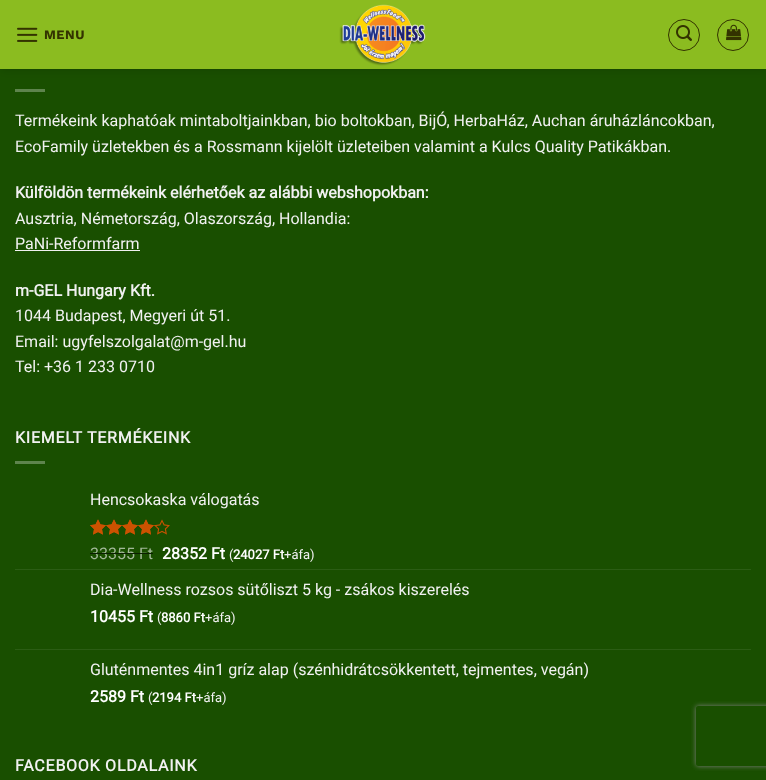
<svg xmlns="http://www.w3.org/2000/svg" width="766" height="780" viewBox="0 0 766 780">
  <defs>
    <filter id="blur1" x="-50%" y="-200%" width="200%" height="500%"><feGaussianBlur stdDeviation="5"/></filter>
    <clipPath id="clip1"><path d="M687 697H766V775H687ZM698 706H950C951 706 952 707 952 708V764C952 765 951 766 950 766H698C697 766 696 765 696 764V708C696 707 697 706 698 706Z" clip-rule="evenodd"/></clipPath>
    <filter id="blur2" x="-50%" y="-200%" width="200%" height="500%"><feGaussianBlur stdDeviation="2.5"/></filter>
  </defs>
  <rect width="100%" height="100%" fill="#194f00"/>
  <rect x="1" y="1" width="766" height="69" fill="#000000" fill-opacity="0.15" filter="url(#blur1)"/>
  <rect x="0" y="0" width="766" height="69" fill="#8bbc20"/>
  <image x="17" y="27" width="21" height="15" href="img1.png"/>
  <text x="44" y="39" font-family="Work Sans" font-size="13" font-weight="bold" letter-spacing="0.5" fill="#333300">MENU</text>
  <image x="339" y="4" width="87" height="62" href="img2.png"/>
  <circle cx="684" cy="35" r="15.5" fill="none" stroke="#333300"/>
  <image x="676" y="25" width="16" height="16" href="img3.png"/>
  <circle cx="733" cy="35" r="15.5" fill="none" stroke="#333300"/>
  <image x="726" y="24" width="16" height="17" href="img4.png"/>
  <rect x="15" y="89" width="30" height="3" fill="#5e844d"/>
  <text x="15" y="126" font-family="Roboto" font-size="16" fill="#f1f1f1">Termékeink kaphatóak mintaboltjainkban, bio boltokban, BijÓ, HerbaHáz, Auchan áruházláncokban,</text>
  <text x="15" y="152" font-family="Roboto" font-size="16" fill="#f1f1f1">EcoFamily üzletekben és a Rossmann kijelölt üzleteiben valamint a Kulcs Quality Patikákban.</text>
  <text x="15" y="198" font-family="Roboto" font-size="16" font-weight="bold" fill="#f1f1f1">Külföldön termékeink elérhetőek az alábbi webshopokban:</text>
  <text x="15" y="224" font-family="Roboto" font-size="16" fill="#f1f1f1">Ausztria, Németország, Olaszország, Hollandia:</text>
  <text x="15" y="249" font-family="Roboto" font-size="16" fill="#f1f1f1">PaNi-Reformfarm</text>
  <rect x="15" y="250" width="125" height="1" fill="#f1f1f1"/>
  <text x="15" y="296" font-family="Roboto" font-size="16" font-weight="bold" fill="#f1f1f1">m-GEL Hungary Kft.</text>
  <text x="15" y="321" font-family="Roboto" font-size="16" fill="#f1f1f1">1044 Budapest, Megyeri út 51.</text>
  <text x="15" y="347" font-family="Roboto" font-size="16" fill="#f1f1f1">Email: ugyfelszolgalat@m-gel.hu</text>
  <text x="15" y="372" font-family="Roboto" font-size="16" fill="#f1f1f1">Tel: +36 1 233 0710</text>
  <text x="15" y="443" font-family="Roboto" font-size="16" font-weight="bold" letter-spacing="0.75" fill="#f1f1f1">KIEMELT TERMÉKEINK</text>
  <rect x="15" y="461" width="30" height="3" fill="#5e844d"/>
  <text x="90" y="505" font-family="Roboto" font-size="16" fill="#f1f1f1">Hencsokaska válogatás</text>
  <image x="90" y="519" width="80" height="16" href="img5.png"/>
  <image x="90" y="519" width="65" height="16" href="img6.png"/>
  <text x="90" y="559" font-family="Roboto" font-size="16" fill="#a3b999">33355 Ft</text>
  <rect x="90" y="553" width="63" height="1" fill="#0a2000"/>
  <text x="162" y="559" font-family="Roboto" font-size="16" font-weight="bold" fill="#ffffff">28352 Ft</text>
  <text x="229" y="559" font-family="Roboto" font-size="13" fill="#f1f1f1">(</text>
  <text x="233" y="559" font-family="Roboto" font-size="13" font-weight="bold" fill="#ffffff">24027 Ft</text>
  <text x="284" y="559" font-family="Roboto" font-size="13" fill="#f1f1f1">+áfa)</text>
  <rect x="15" y="569" width="736" height="1" fill="#2b5d14"/>
  <text x="90" y="595" font-family="Roboto" font-size="16" fill="#f1f1f1">Dia-Wellness rozsos sütőliszt 5 kg - zsákos kiszerelés</text>
  <text x="90" y="622" font-family="Roboto" font-size="16" font-weight="bold" fill="#ffffff">10455 Ft</text>
  <text x="157" y="622" font-family="Roboto" font-size="13" fill="#f1f1f1">(</text>
  <text x="161" y="622" font-family="Roboto" font-size="13" font-weight="bold" fill="#ffffff">8860 Ft</text>
  <text x="205" y="622" font-family="Roboto" font-size="13" fill="#f1f1f1">+áfa)</text>
  <rect x="15" y="649" width="736" height="1" fill="#2b5d14"/>
  <text x="90" y="675" font-family="Roboto" font-size="16" fill="#f1f1f1">Gluténmentes 4in1 gríz alap (szénhidrátcsökkentett, tejmentes, vegán)</text>
  <text x="90" y="702" font-family="Roboto" font-size="16" font-weight="bold" fill="#ffffff">2589 Ft</text>
  <text x="148" y="702" font-family="Roboto" font-size="13" fill="#f1f1f1">(</text>
  <text x="152" y="702" font-family="Roboto" font-size="13" font-weight="bold" fill="#ffffff">2194 Ft</text>
  <text x="196" y="702" font-family="Roboto" font-size="13" fill="#f1f1f1">+áfa)</text>
  <text x="15" y="771" font-family="Roboto" font-size="16" font-weight="bold" letter-spacing="0.75" fill="#f1f1f1">FACEBOOK OLDALAINK</text>
  <g clip-path="url(#clip1)">
    <rect x="696" y="706" width="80" height="60" rx="2" fill="#808080" filter="url(#blur2)"/>
  </g>
</svg>
